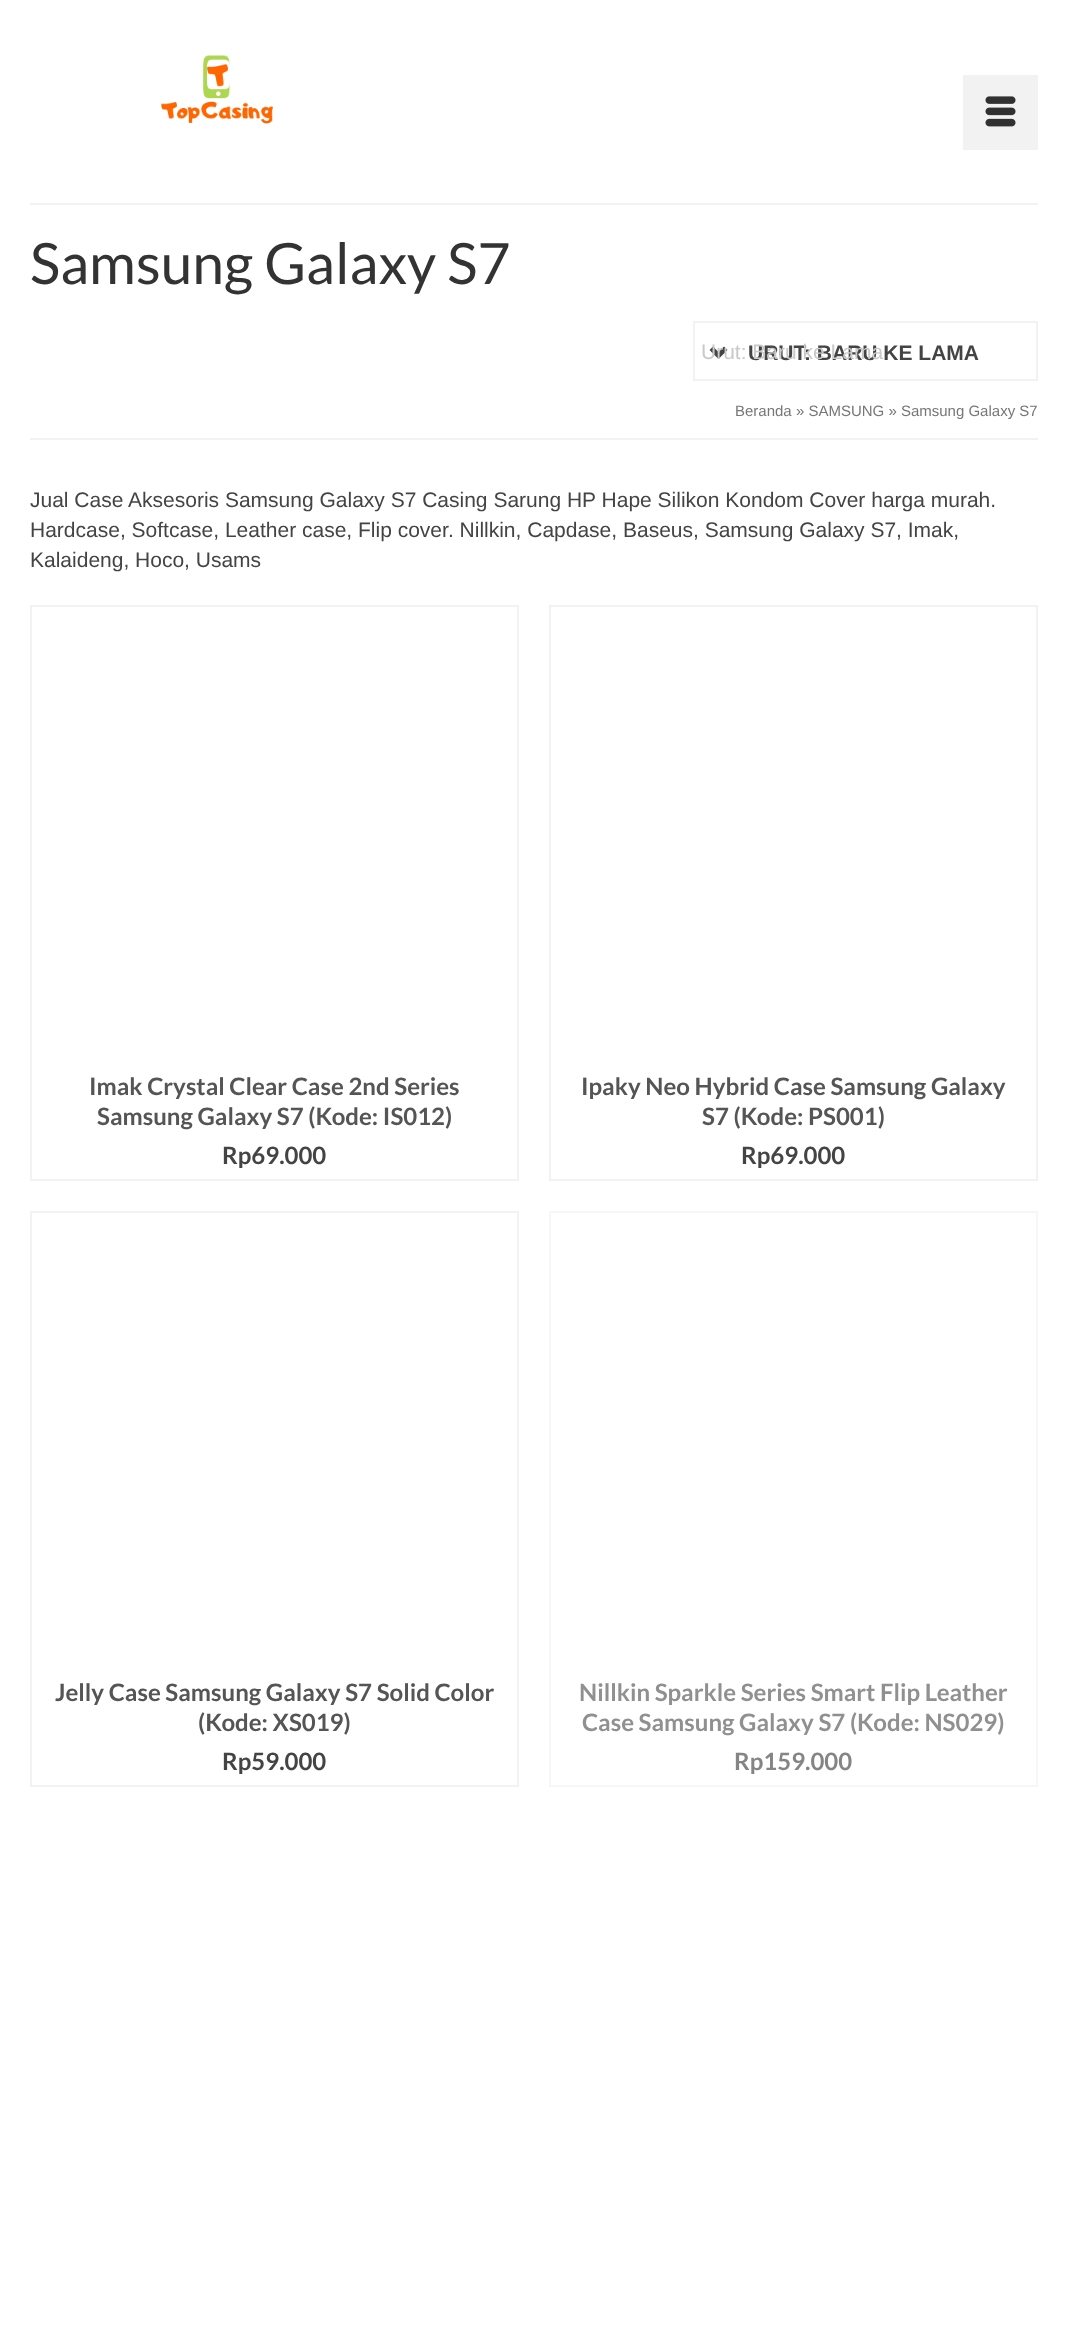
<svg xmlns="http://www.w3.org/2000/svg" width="1067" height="2352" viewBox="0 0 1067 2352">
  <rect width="100%" height="100%" fill="#ffffff"/>
  <image x="161" y="55" width="112" height="69" href="img1.png"/>
  <rect x="963" y="75" width="75" height="75" fill="#f2f2f2"/>
  <image x="985" y="96" width="31" height="31" href="img2.png"/>
  <rect x="30" y="203" width="1008" height="2" fill="#f2f2f2"/>
  <rect x="30" y="438" width="1008" height="2" fill="#f2f2f2"/>
  <text x="30" y="284" font-family="Lato" font-size="57" fill="#333333">Samsung Galaxy S7</text>
  <rect x="694" y="322" width="343" height="58" fill="none" stroke="#f2f2f2" stroke-width="2"/>
  <path d="M727.5 350L724 346.5L718.5 352L713 346.5L709.5 350L718.5 359Z" fill="#444444"/>
  <text x="748" y="360" font-family="Liberation Sans" font-size="21" font-weight="bold" fill="#444444">URUT: BARU KE LAMA</text>
  <text x="701" y="359" font-family="Liberation Sans" font-size="21" fill="#c9c9c9">Urut: Baru ke Lama</text>
  <text x="735" y="416" font-family="Liberation Sans" font-size="15" fill="#777777">Beranda » SAMSUNG » Samsung Galaxy S7</text>
  <text x="30" y="507" font-family="Liberation Sans" font-size="21" fill="#444444">Jual Case Aksesoris Samsung Galaxy S7 Casing Sarung HP Hape Silikon Kondom Cover harga murah.</text>
  <text x="30" y="537" font-family="Liberation Sans" font-size="21" fill="#444444">Hardcase, Softcase, Leather case, Flip cover. Nillkin, Capdase, Baseus, Samsung Galaxy S7, Imak,</text>
  <text x="30" y="567" font-family="Liberation Sans" font-size="21" fill="#444444">Kalaideng, Hoco, Usams</text>
  <rect x="31" y="606" width="487" height="574" fill="none" stroke="#f2f2f2" stroke-width="2"/>
  <text x="89" y="1095" font-family="Lato" font-size="24" font-weight="bold" fill="#555555">Imak Crystal Clear Case 2nd Series</text>
  <text x="97" y="1125" font-family="Lato" font-size="24" font-weight="bold" fill="#555555">Samsung Galaxy S7 (Kode: IS012)</text>
  <text x="222" y="1164" font-family="Lato" font-size="24" font-weight="bold" fill="#444444">Rp69.000</text>
  <rect x="550" y="606" width="487" height="574" fill="none" stroke="#f2f2f2" stroke-width="2"/>
  <text x="581" y="1095" font-family="Lato" font-size="24" font-weight="bold" fill="#555555">Ipaky Neo Hybrid Case Samsung Galaxy</text>
  <text x="702" y="1125" font-family="Lato" font-size="24" font-weight="bold" fill="#555555">S7 (Kode: PS001)</text>
  <text x="741" y="1164" font-family="Lato" font-size="24" font-weight="bold" fill="#444444">Rp69.000</text>
  <rect x="31" y="1212" width="487" height="574" fill="none" stroke="#f2f2f2" stroke-width="2"/>
  <text x="55" y="1701" font-family="Lato" font-size="24" font-weight="bold" fill="#555555">Jelly Case Samsung Galaxy S7 Solid Color</text>
  <text x="198" y="1731" font-family="Lato" font-size="24" font-weight="bold" fill="#555555">(Kode: XS019)</text>
  <text x="222" y="1770" font-family="Lato" font-size="24" font-weight="bold" fill="#444444">Rp59.000</text>
  <rect x="550" y="1212" width="487" height="574" fill="none" stroke="#f7f7f7" stroke-width="2"/>
  <text x="579" y="1701" font-family="Lato" font-size="24" font-weight="bold" fill="#909090">Nillkin Sparkle Series Smart Flip Leather</text>
  <text x="582" y="1731" font-family="Lato" font-size="24" font-weight="bold" fill="#909090">Case Samsung Galaxy S7 (Kode: NS029)</text>
  <text x="734" y="1770" font-family="Lato" font-size="24" font-weight="bold" fill="#858585">Rp159.000</text>
</svg>
